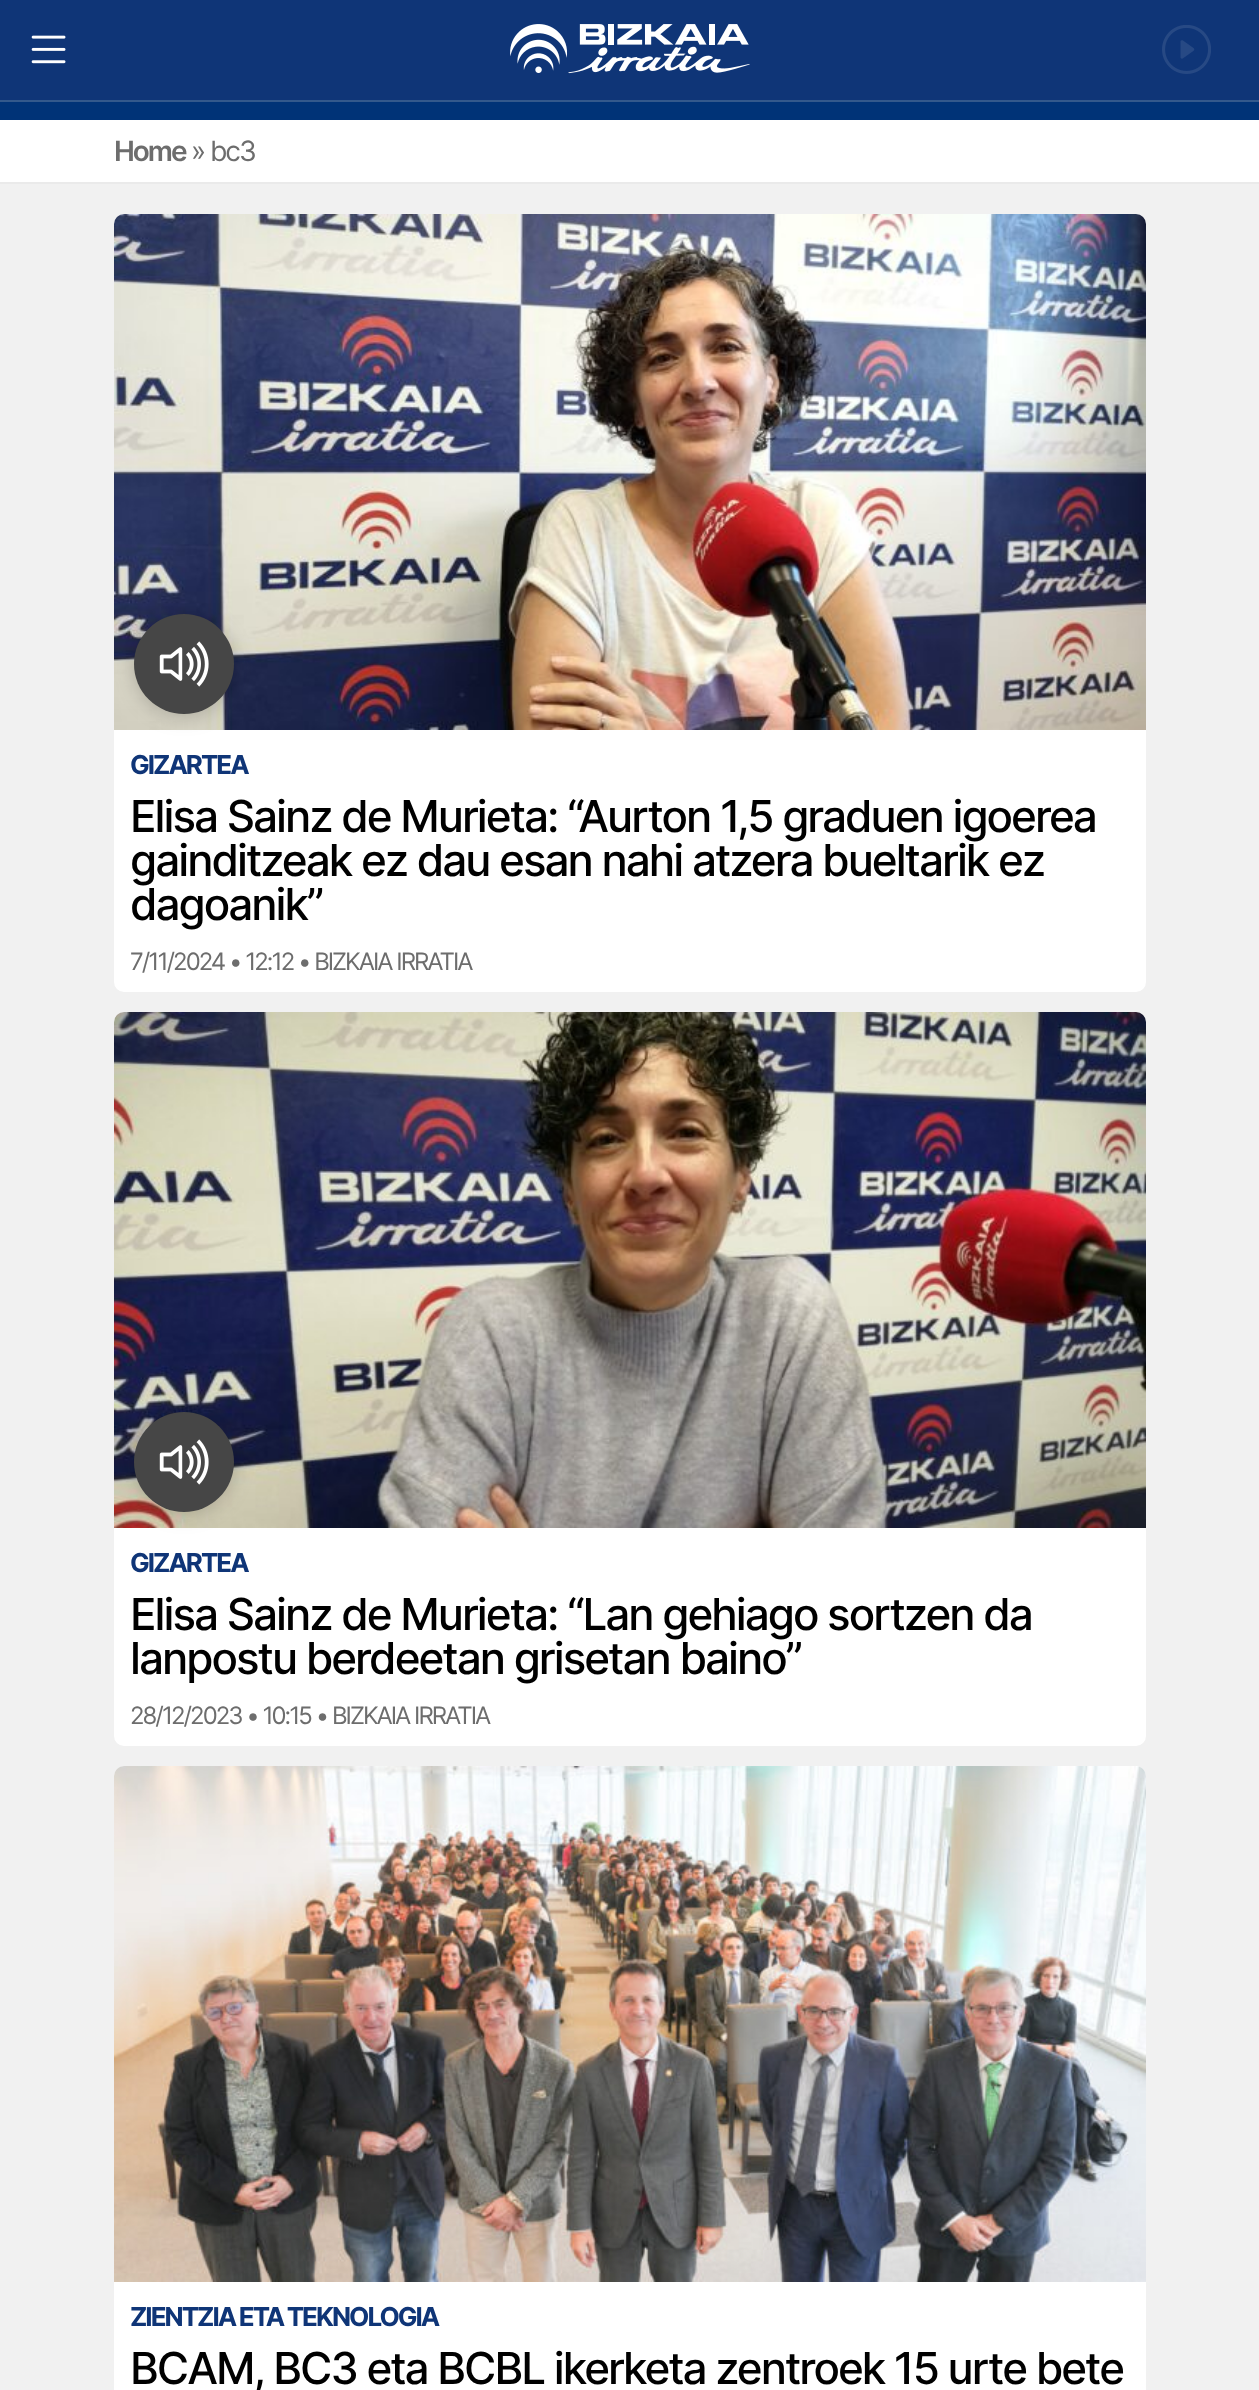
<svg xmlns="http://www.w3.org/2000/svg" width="1259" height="2390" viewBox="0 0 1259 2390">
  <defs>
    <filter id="blur1" x="-50%" y="-200%" width="200%" height="500%"><feGaussianBlur stdDeviation="10"/></filter>
  </defs>
  <rect width="100%" height="100%" fill="#ffffff"/>
  <rect x="0" y="0" width="1259" height="100" fill="#0f3577"/>
  <image x="31" y="35" width="35" height="29" href="img1.png"/>
  <image x="510" y="24" width="240" height="50" href="img2.png"/>
  <image x="1162" y="25" width="49" height="49" href="img3.png"/>
  <rect x="0" y="100" width="1259" height="2" fill="#33598c"/>
  <rect x="0" y="102" width="1259" height="18" fill="#003377"/>
  <rect x="0" y="182" width="1259" height="2" fill="#eaeaea"/>
  <text x="114" y="161" font-family="Inter" font-size="28" font-weight="600" letter-spacing="-2" fill="#6d6d6d">Home</text>
  <text x="191" y="161" font-family="Inter" font-size="28" letter-spacing="-2" fill="#6d6d6d">» bc3</text>
  <rect x="0" y="184" width="1259" height="2206" fill="#f1f1f1"/>
  <rect x="114" y="214" width="1032" height="778" rx="10" fill="#ffffff"/>
  <image x="114" y="214" width="1032" height="516" href="img4.png"/>
  <rect x="134" y="616" width="100" height="100" rx="50" fill="#000000" fill-opacity="0.2" filter="url(#blur1)"/>
  <circle cx="184" cy="664" r="50" fill="#464646"/>
  <image x="159" y="641" width="50" height="46" href="img5.png"/>
  <text x="130" y="774" font-family="Inter" font-size="26" font-weight="bold" letter-spacing="-2" fill="#0f3577">GIZARTEA</text>
  <text x="130" y="832" font-family="Inter" font-size="44" font-weight="500" letter-spacing="-2" fill="#000000">Elisa Sainz de Murieta: “Aurton 1,5 graduen igoerea</text>
  <text x="130" y="876" font-family="Inter" font-size="44" font-weight="500" letter-spacing="-2" fill="#000000">gainditzeak ez dau esan nahi atzera bueltarik ez</text>
  <text x="130" y="920" font-family="Inter" font-size="44" font-weight="500" letter-spacing="-2" fill="#000000">dagoanik”</text>
  <text x="130" y="970" font-family="Inter" font-size="24" letter-spacing="-2" fill="#6d6d6d">7/11/2024 • 12:12 • BIZKAIA IRRATIA</text>
  <rect x="114" y="1012" width="1032" height="734" rx="10" fill="#ffffff"/>
  <image x="114" y="1012" width="1032" height="516" href="img6.png"/>
  <rect x="134" y="1414" width="100" height="100" rx="50" fill="#000000" fill-opacity="0.2" filter="url(#blur1)"/>
  <circle cx="184" cy="1462" r="50" fill="#464646"/>
  <image x="159" y="1439" width="50" height="46" href="img5.png"/>
  <text x="130" y="1572" font-family="Inter" font-size="26" font-weight="bold" letter-spacing="-2" fill="#0f3577">GIZARTEA</text>
  <text x="130" y="1630" font-family="Inter" font-size="44" font-weight="500" letter-spacing="-2" fill="#000000">Elisa Sainz de Murieta: “Lan gehiago sortzen da</text>
  <text x="130" y="1674" font-family="Inter" font-size="44" font-weight="500" letter-spacing="-2" fill="#000000">lanpostu berdeetan grisetan baino”</text>
  <text x="130" y="1724" font-family="Inter" font-size="24" letter-spacing="-2" fill="#6d6d6d">28/12/2023 • 10:15 • BIZKAIA IRRATIA</text>
  <rect x="114" y="1766" width="1032" height="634" rx="10" fill="#ffffff"/>
  <image x="114" y="1766" width="1032" height="516" href="img7.png"/>
  <text x="130" y="2326" font-family="Inter" font-size="26" font-weight="bold" letter-spacing="-2" fill="#0f3577">ZIENTZIA ETA TEKNOLOGIA</text>
  <text x="130" y="2384" font-family="Inter" font-size="44" font-weight="500" letter-spacing="-2" fill="#000000">BCAM, BC3 eta BCBL ikerketa zentroek 15 urte bete</text>
</svg>
